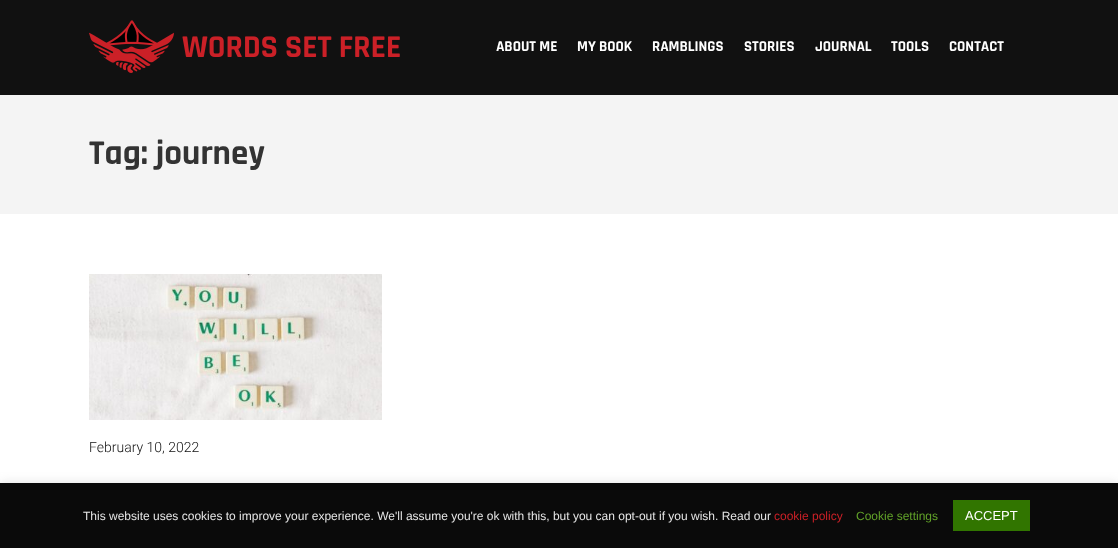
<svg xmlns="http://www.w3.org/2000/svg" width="1118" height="548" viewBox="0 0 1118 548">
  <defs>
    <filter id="blur1" x="-50%" y="-200%" width="200%" height="500%"><feGaussianBlur stdDeviation="5"/></filter>
  </defs>
  <rect width="100%" height="100%" fill="#ffffff"/>
  <rect x="0" y="0" width="1118" height="95" fill="#111111"/>
  <image x="89" y="20" width="311" height="53" href="img1.png"/>
  <text x="496" y="51" font-family="Rajdhani" font-size="15" font-weight="bold" fill="#ffffff">ABOUT ME</text>
  <text x="577" y="51" font-family="Rajdhani" font-size="15" font-weight="bold" fill="#ffffff">MY BOOK</text>
  <text x="652" y="51" font-family="Rajdhani" font-size="15" font-weight="bold" fill="#ffffff">RAMBLINGS</text>
  <text x="744" y="51" font-family="Rajdhani" font-size="15" font-weight="bold" fill="#ffffff">STORIES</text>
  <text x="815" y="51" font-family="Rajdhani" font-size="15" font-weight="bold" fill="#ffffff">JOURNAL</text>
  <text x="891" y="51" font-family="Rajdhani" font-size="15" font-weight="bold" fill="#ffffff">TOOLS</text>
  <text x="949" y="51" font-family="Rajdhani" font-size="15" font-weight="bold" fill="#ffffff">CONTACT</text>
  <rect x="0" y="95" width="1118" height="119" fill="#f4f4f4"/>
  <text x="89" y="164" font-family="Rajdhani" font-size="35" font-weight="bold" fill="#333333">Tag: journey</text>
  <image x="89" y="274" width="293" height="146" href="img2.png"/>
  <text x="89" y="452" font-family="Roboto" font-size="14" font-weight="300" fill="#111111">February 10, 2022</text>
  <rect x="0" y="482" width="1118" height="65" fill="#acabab" fill-opacity="0.3" filter="url(#blur1)"/>
  <rect x="0" y="483" width="1118" height="65" fill="#0a0a0a"/>
  <text x="83" y="520" font-family="Liberation Sans" font-size="12" fill="#e5e5e5">This website uses cookies to improve your experience. We'll assume you're ok with this, but you can opt-out if you wish. Read our</text>
  <text x="774" y="520" font-family="Liberation Sans" font-size="12" fill="#cb2027">cookie policy</text>
  <text x="856" y="520" font-family="Liberation Sans" font-size="12" fill="#62a329">Cookie settings</text>
  <rect x="953" y="500" width="77" height="31" fill="#317500"/>
  <text x="965" y="520" font-family="Liberation Sans" font-size="13" fill="#ffffff">ACCEPT</text>
</svg>
